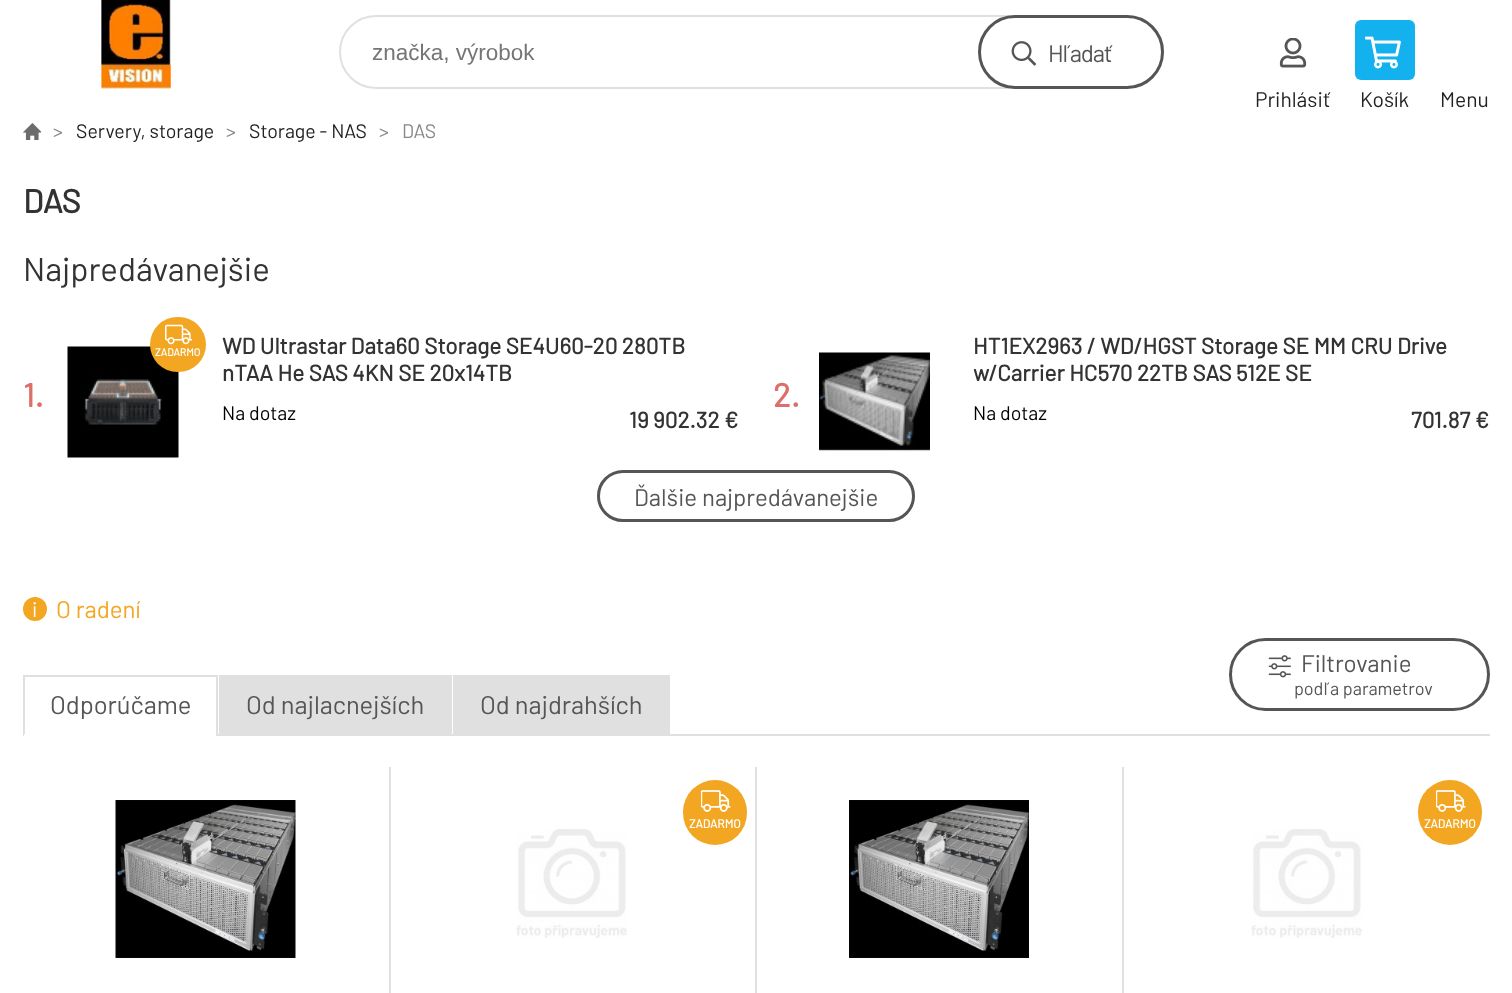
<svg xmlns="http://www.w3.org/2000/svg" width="1512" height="993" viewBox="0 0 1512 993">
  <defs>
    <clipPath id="clip1"><rect x="974" y="332" width="516" height="55"/></clipPath>
  </defs>
  <rect width="100%" height="100%" fill="#ffffff"/>
  <image x="101" y="0" width="70" height="89" href="img1.png"/>
  <rect x="340" y="16" width="823" height="72" rx="36" fill="none" stroke="#e0e0e0" stroke-width="2"/>
  <text x="372" y="60" font-family="Liberation Sans" font-size="22.5" fill="#757575">značka, výrobok</text>
  <image x="1011" y="41" width="26" height="25" href="img2.png"/>
  <rect x="979.5" y="16.5" width="183" height="71" rx="35.5" fill="none" stroke="#555555" stroke-width="3"/>
  <text x="1048" y="62" font-family="Barlow" font-size="24" letter-spacing="-1.25" fill="#555555">Hľadať</text>
  <image x="1279" y="38" width="28" height="30" href="img3.png"/>
  <text x="1255" y="107" font-family="Barlow" font-size="21" fill="#222222">Prihlásiť</text>
  <rect x="1355" y="20" width="60" height="60" rx="6" fill="#14b1ef"/>
  <image x="1365" y="36" width="36" height="33" href="img4.png"/>
  <text x="1360" y="107" font-family="Barlow" font-size="21" fill="#222222">Košík</text>
  <text x="1440" y="107" font-family="Barlow" font-size="21" fill="#222222">Menu</text>
  <image x="23" y="123" width="18" height="17" href="img5.png"/>
  <text x="53" y="138" font-family="Barlow" font-size="19.5" fill="#888888">&gt;</text>
  <text x="76" y="138" font-family="Barlow" font-size="19.5" fill="#222222">Servery, storage</text>
  <text x="226" y="138" font-family="Barlow" font-size="19.5" fill="#888888">&gt;</text>
  <text x="249" y="138" font-family="Barlow" font-size="19.5" fill="#222222">Storage - NAS</text>
  <text x="379" y="138" font-family="Barlow" font-size="19.5" fill="#888888">&gt;</text>
  <text x="402" y="138" font-family="Barlow" font-size="19.5" fill="#888888">DAS</text>
  <text x="23" y="213" font-family="Barlow" font-size="33" font-weight="bold" fill="#333333">DAS</text>
  <text x="23" y="281" font-family="Barlow" font-size="33" fill="#333333">Najpredávanejšie</text>
  <text x="23" y="407" font-family="Barlow" font-size="33" font-weight="bold" fill="#dc6f69">1.</text>
  <image x="67" y="346" width="112" height="112" href="img6.png"/>
  <rect x="150" y="317" width="56" height="55" rx="27.5" fill="#f2a621"/>
  <image x="165" y="324" width="27" height="21" href="img7.png"/>
  <text x="155" y="356" font-family="Barlow" font-size="10.5" font-weight="bold" fill="#ffffff">ZADARMO</text>
  <text x="222" y="354" font-family="Barlow" font-size="22.5" font-weight="bold" fill="#333333">WD Ultrastar Data60 Storage SE4U60-20 280TB</text>
  <text x="222" y="381" font-family="Barlow" font-size="22.5" font-weight="bold" fill="#333333">nTAA He SAS 4KN SE 20x14TB</text>
  <text x="222" y="420" font-family="Barlow" font-size="19.5" fill="#000000">Na dotaz</text>
  <text x="629" y="428" font-family="Barlow" font-size="22.5" font-weight="bold" fill="#333333">19 902.32 €</text>
  <text x="773" y="407" font-family="Barlow" font-size="33" font-weight="bold" fill="#dc6f69">2.</text>
  <image x="819" y="352" width="111" height="101" href="img8.png"/>
  <text x="973" y="354" font-family="Barlow" font-size="22.5" font-weight="bold" fill="#333333">HT1EX2963 / WD/HGST Storage SE MM CRU Drive</text>
  <g clip-path="url(#clip1)">
    <text x="973" y="381" font-family="Barlow" font-size="22.5" font-weight="bold" fill="#333333">w/Carrier HC570 22TB SAS 512E SE</text>
  </g>
  <text x="973" y="420" font-family="Barlow" font-size="19.5" fill="#000000">Na dotaz</text>
  <text x="1411" y="428" font-family="Barlow" font-size="22.5" font-weight="bold" fill="#333333">701.87 €</text>
  <rect x="598.5" y="471.5" width="315" height="49" rx="24.5" fill="none" stroke="#555555" stroke-width="3"/>
  <text x="634" y="506" font-family="Barlow" font-size="24" fill="#555555">Ďalšie najpredávanejšie</text>
  <rect x="23" y="734" width="1467" height="2" fill="#e0e0e0"/>
  <circle cx="35" cy="609" r="12" fill="#f2a621"/>
  <text x="32" y="617" font-family="Barlow" font-size="21" fill="#ffffff">i</text>
  <text x="56" y="618" font-family="Barlow" font-size="24" fill="#f2a621">O radení</text>
  <image x="1268" y="655" width="23" height="23" href="img9.png"/>
  <rect x="1230.5" y="639.5" width="258" height="70" rx="35" fill="none" stroke="#555555" stroke-width="3"/>
  <text x="1301" y="672" font-family="Barlow" font-size="24" fill="#555555">Filtrovanie</text>
  <text x="1294" y="695" font-family="Barlow" font-size="18" fill="#555555">podľa parametrov</text>
  <rect x="23" y="675" width="195" height="2" fill="#e0e0e0"/>
  <rect x="216" y="675" width="2" height="59" fill="#e0e0e0"/>
  <rect x="23" y="675" width="2" height="59" fill="#e0e0e0"/>
  <text x="50" y="714" font-family="Barlow" font-size="25.5" fill="#555555">Odporúčame</text>
  <rect x="24" y="734" width="192" height="2" fill="#ffffff"/>
  <rect x="219" y="675" width="233" height="59" fill="#e0e0e0"/>
  <text x="246" y="714" font-family="Barlow" font-size="25.5" fill="#555555">Od najlacnejších</text>
  <rect x="453" y="675" width="217" height="59" fill="#e0e0e0"/>
  <text x="480" y="714" font-family="Barlow" font-size="25.5" fill="#555555">Od najdrahších</text>
  <rect x="389" y="767" width="2" height="226" fill="#e0e0e0"/>
  <image x="115" y="800" width="181" height="158" href="img10.png"/>
  <rect x="755" y="767" width="2" height="226" fill="#e0e0e0"/>
  <rect x="683" y="780" width="64" height="65" rx="32" fill="#f2a621"/>
  <image x="701" y="790" width="30" height="22" href="img11.png"/>
  <text x="689" y="828" font-family="Barlow" font-size="12" font-weight="bold" fill="#ffffff">ZADARMO</text>
  <image x="516" y="829" width="111" height="109" href="img12.png"/>
  <rect x="1122" y="767" width="2" height="226" fill="#e0e0e0"/>
  <image x="849" y="800" width="180" height="158" href="img13.png"/>
  <rect x="1418" y="780" width="64" height="65" rx="32" fill="#f2a621"/>
  <image x="1436" y="790" width="30" height="22" href="img11.png"/>
  <text x="1424" y="828" font-family="Barlow" font-size="12" font-weight="bold" fill="#ffffff">ZADARMO</text>
  <image x="1251" y="829" width="111" height="109" href="img14.png"/>
</svg>
